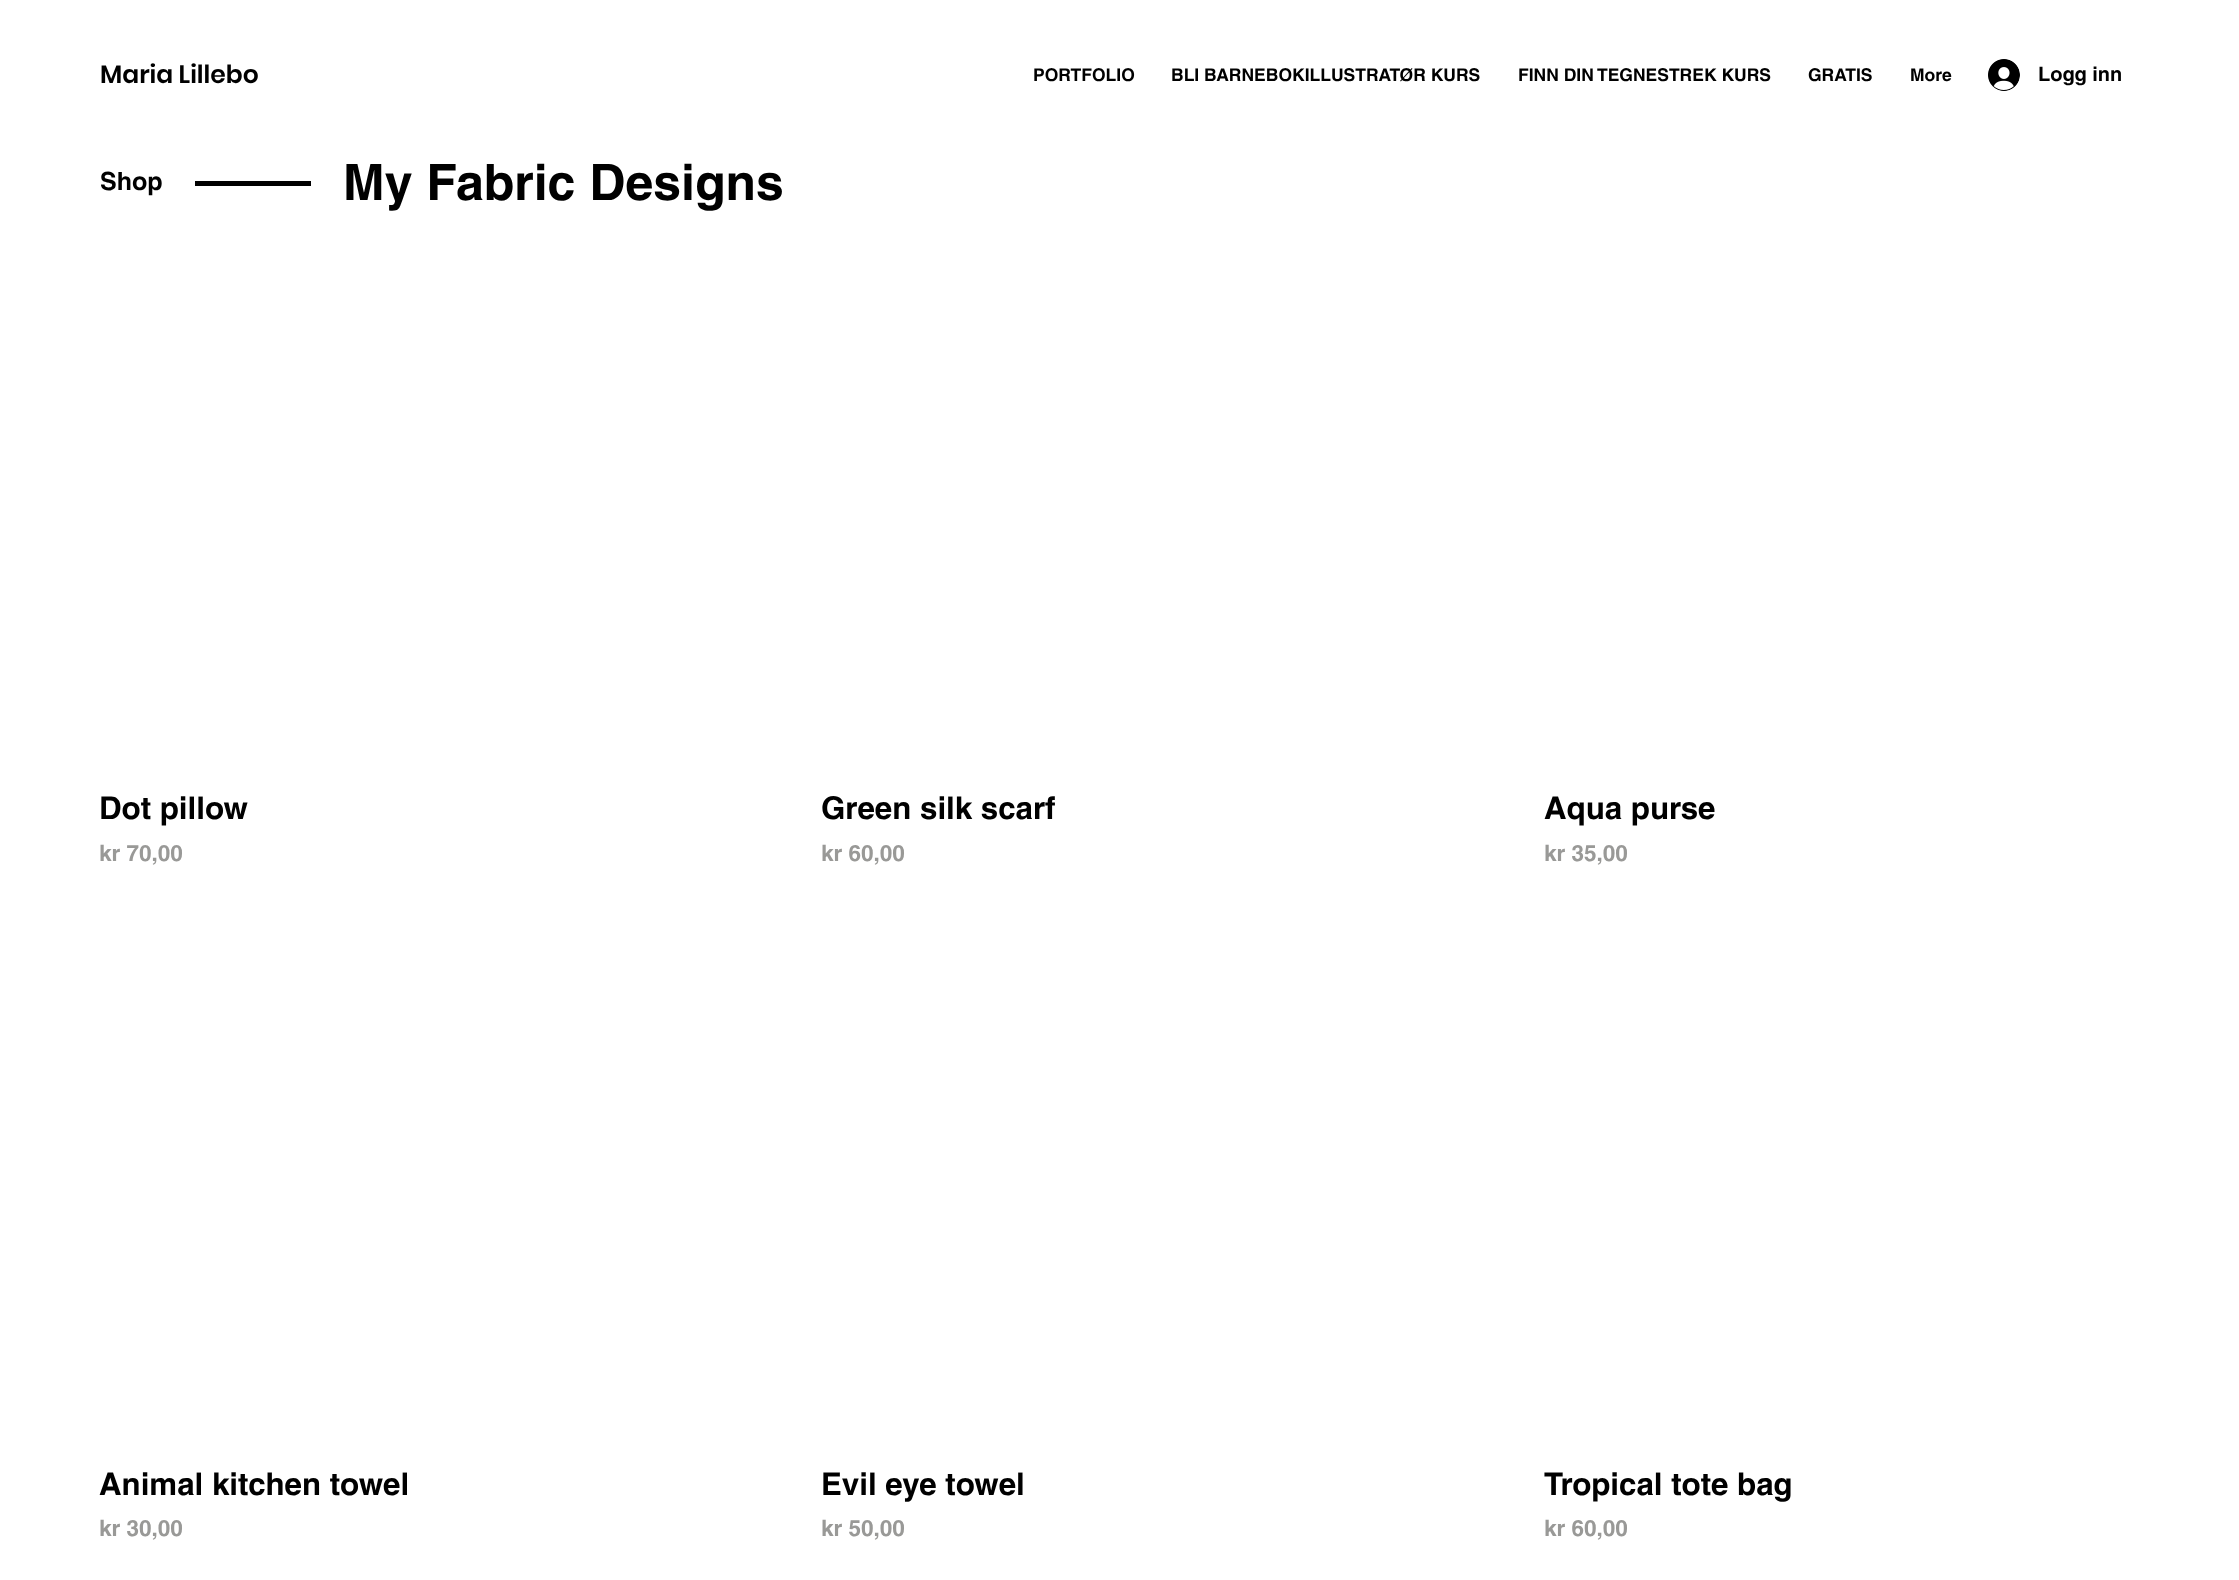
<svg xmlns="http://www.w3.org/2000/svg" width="2239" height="1580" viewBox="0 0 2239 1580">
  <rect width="100%" height="100%" fill="#ffffff"/>
  <text x="100" y="83" font-family="Poppins" font-size="25" font-weight="600" fill="#000000">Maria Lillebo</text>
  <text x="1033" y="81" font-family="helvetica" font-size="17.5" font-weight="bold" fill="#000000">PORTFOLIO</text>
  <text x="1171" y="81" font-family="helvetica" font-size="17.5" font-weight="bold" fill="#000000">BLI BARNEBOKILLUSTRATØR KURS</text>
  <text x="1518" y="81" font-family="helvetica" font-size="17.5" font-weight="bold" fill="#000000">FINN DIN TEGNESTREK KURS</text>
  <text x="1808" y="81" font-family="helvetica" font-size="17.5" font-weight="bold" fill="#000000">GRATIS</text>
  <text x="1910" y="81" font-family="helvetica" font-size="17.5" font-weight="bold" fill="#000000">More</text>
  <image x="1988" y="59" width="32" height="32" href="img1.png"/>
  <text x="2038" y="81" font-family="helvetica" font-size="20" font-weight="bold" fill="#000000">Logg inn</text>
  <text x="100" y="190" font-family="helvetica" font-size="25" font-weight="bold" fill="#000000">Shop</text>
  <rect x="195" y="181" width="116" height="5" fill="#000000"/>
  <text x="343" y="200" font-family="helvetica" font-size="50" font-weight="bold" fill="#000000">My Fabric Designs</text>
  <text x="99" y="819" font-family="helvetica" font-size="31.25" font-weight="bold" fill="#000000">Dot pillow</text>
  <text x="99" y="861" font-family="helvetica" font-size="22.5" font-weight="bold" fill="#999997">kr 70,00</text>
  <text x="821" y="819" font-family="helvetica" font-size="31.25" font-weight="bold" fill="#000000">Green silk scarf</text>
  <text x="821" y="861" font-family="helvetica" font-size="22.5" font-weight="bold" fill="#999997">kr 60,00</text>
  <text x="1544" y="819" font-family="helvetica" font-size="31.25" font-weight="bold" fill="#000000">Aqua purse</text>
  <text x="1544" y="861" font-family="helvetica" font-size="22.5" font-weight="bold" fill="#999997">kr 35,00</text>
  <text x="99" y="1495" font-family="helvetica" font-size="31.25" font-weight="bold" fill="#000000">Animal kitchen towel</text>
  <text x="99" y="1536" font-family="helvetica" font-size="22.5" font-weight="bold" fill="#999997">kr 30,00</text>
  <text x="821" y="1495" font-family="helvetica" font-size="31.25" font-weight="bold" fill="#000000">Evil eye towel</text>
  <text x="821" y="1536" font-family="helvetica" font-size="22.5" font-weight="bold" fill="#999997">kr 50,00</text>
  <text x="1544" y="1495" font-family="helvetica" font-size="31.25" font-weight="bold" fill="#000000">Tropical tote bag</text>
  <text x="1544" y="1536" font-family="helvetica" font-size="22.5" font-weight="bold" fill="#999997">kr 60,00</text>
</svg>
